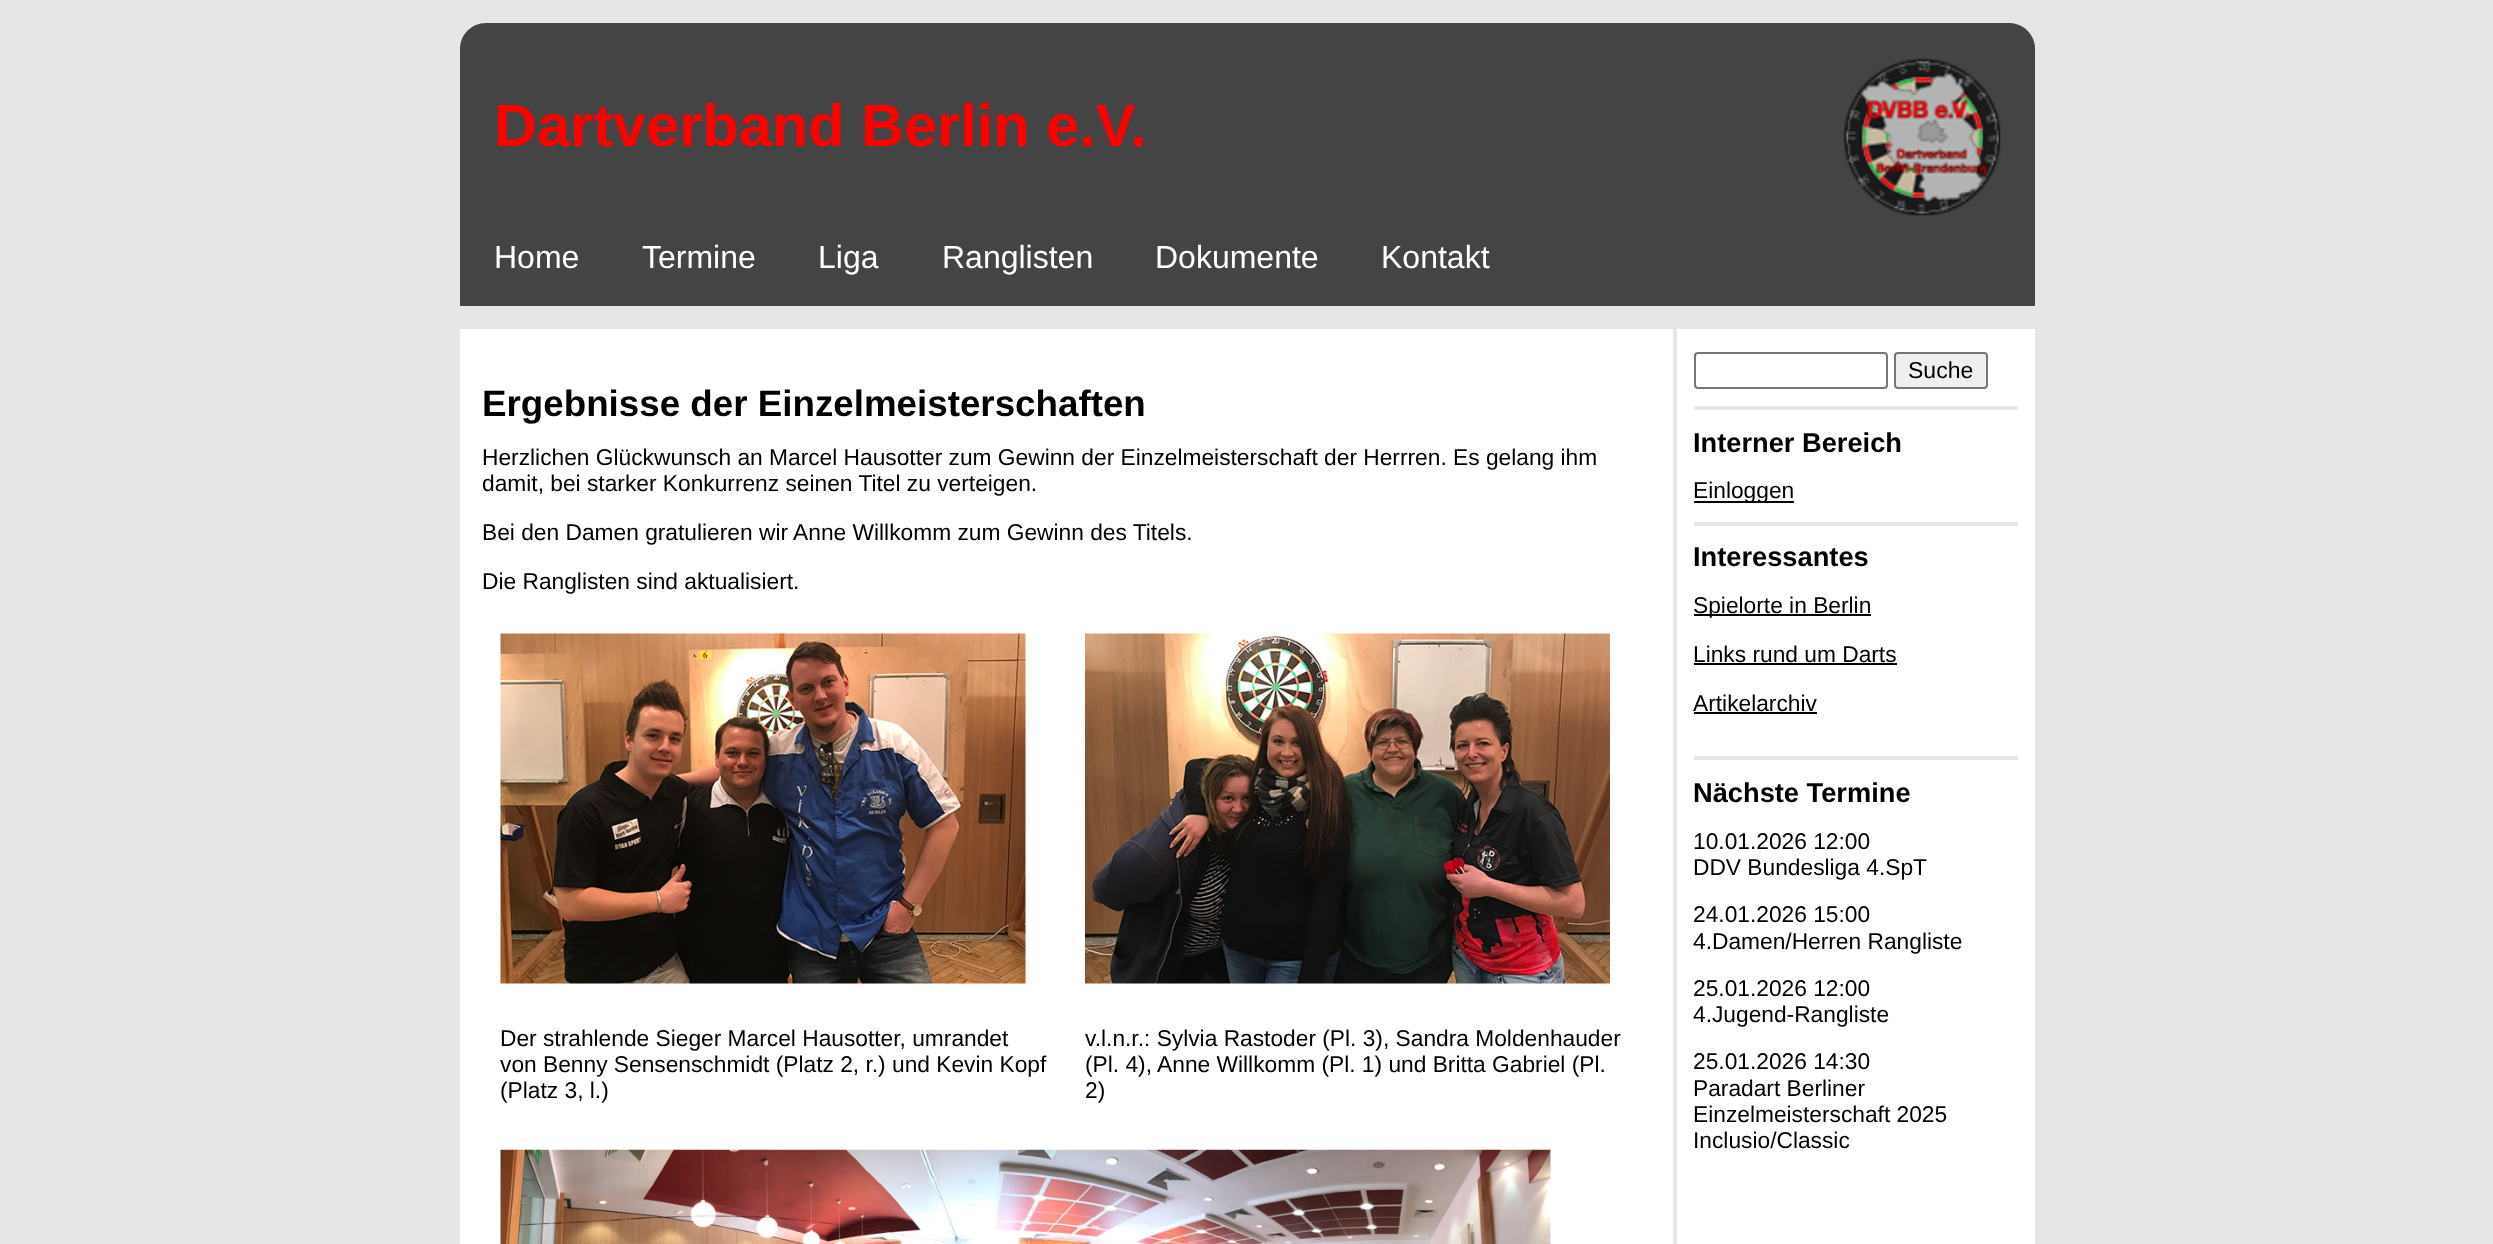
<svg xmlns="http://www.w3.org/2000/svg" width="2493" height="1244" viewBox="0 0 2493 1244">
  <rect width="100%" height="100%" fill="#e6e6e6"/>
  <path d="M486 23H2009C2023.5 23 2035 34.5 2035 49V306H460V49C460 34.5 471.5 23 486 23Z" fill="#444444"/>
  <text x="494" y="146" font-family="Liberation Sans" font-size="59.5" font-weight="bold" fill="#ff0000">Dartverband Berlin e.V.</text>
  <image x="1843" y="58" width="158" height="158" href="img1.png"/>
  <text x="494" y="268" font-family="Liberation Sans" font-size="32" fill="#ffffff">Home</text>
  <text x="642" y="268" font-family="Liberation Sans" font-size="32" fill="#ffffff">Termine</text>
  <text x="818" y="268" font-family="Liberation Sans" font-size="32" fill="#ffffff">Liga</text>
  <text x="942" y="268" font-family="Liberation Sans" font-size="32" fill="#ffffff">Ranglisten</text>
  <text x="1155" y="268" font-family="Liberation Sans" font-size="32" fill="#ffffff">Dokumente</text>
  <text x="1381" y="268" font-family="Liberation Sans" font-size="32" fill="#ffffff">Kontakt</text>
  <rect x="460" y="329" width="1575" height="915" fill="#ffffff"/>
  <text x="482" y="416" font-family="Liberation Sans" font-size="36.75" font-weight="bold" fill="#000000">Ergebnisse der Einzelmeisterschaften</text>
  <text x="482" y="465" font-family="Liberation Sans" font-size="22.75" fill="#000000">Herzlichen Glückwunsch an Marcel Hausotter zum Gewinn der Einzelmeisterschaft der Herrren. Es gelang ihm</text>
  <text x="482" y="491" font-family="Liberation Sans" font-size="22.75" fill="#000000">damit, bei starker Konkurrenz seinen Titel zu verteigen.</text>
  <text x="482" y="540" font-family="Liberation Sans" font-size="22.75" fill="#000000">Bei den Damen gratulieren wir Anne Willkomm zum Gewinn des Titels.</text>
  <text x="482" y="589" font-family="Liberation Sans" font-size="22.75" fill="#000000">Die Ranglisten sind aktualisiert.</text>
  <image x="500" y="633" width="526" height="351" href="img2.png"/>
  <image x="1085" y="633" width="525" height="351" href="img3.png"/>
  <text x="500" y="1046" font-family="Liberation Sans" font-size="22.75" fill="#000000">Der strahlende Sieger Marcel Hausotter, umrandet</text>
  <text x="500" y="1072" font-family="Liberation Sans" font-size="22.75" fill="#000000">von Benny Sensenschmidt (Platz 2, r.) und Kevin Kopf</text>
  <text x="500" y="1098" font-family="Liberation Sans" font-size="22.75" fill="#000000">(Platz 3, l.)</text>
  <text x="1085" y="1046" font-family="Liberation Sans" font-size="22.75" fill="#000000">v.l.n.r.: Sylvia Rastoder (Pl. 3), Sandra Moldenhauder</text>
  <text x="1085" y="1072" font-family="Liberation Sans" font-size="22.75" fill="#000000">(Pl. 4), Anne Willkomm (Pl. 1) und Britta Gabriel (Pl.</text>
  <text x="1085" y="1098" font-family="Liberation Sans" font-size="22.75" fill="#000000">2)</text>
  <image x="500" y="1149" width="1051" height="95" href="img4.png"/>
  <rect x="1673" y="329" width="4" height="915" fill="#e6e6e6"/>
  <rect x="1694" y="406" width="324" height="4" fill="#e6e6e6"/>
  <rect x="1695" y="353" width="192" height="35" rx="3" fill="none" stroke="#767676" stroke-width="2"/>
  <rect x="1895" y="353" width="92" height="35" rx="3" fill="#efefef" stroke="#767676" stroke-width="2"/>
  <text x="1908" y="378" font-family="Liberation Sans" font-size="23" fill="#000000">Suche</text>
  <rect x="1694" y="522" width="324" height="4" fill="#e6e6e6"/>
  <text x="1693" y="452" font-family="Liberation Sans" font-size="27.25" font-weight="bold" fill="#000000">Interner Bereich</text>
  <rect x="1694" y="501" width="100" height="2" fill="#000000"/>
  <text x="1693" y="498" font-family="Liberation Sans" font-size="22.75" fill="#000000">Einloggen</text>
  <rect x="1694" y="756" width="324" height="4" fill="#e6e6e6"/>
  <text x="1693" y="566" font-family="Liberation Sans" font-size="27.25" font-weight="bold" fill="#000000">Interessantes</text>
  <rect x="1694" y="614" width="177" height="2" fill="#000000"/>
  <text x="1693" y="613" font-family="Liberation Sans" font-size="22.75" fill="#000000">Spielorte in Berlin</text>
  <text x="1693" y="662" font-family="Liberation Sans" font-size="22.75" fill="#000000">Links rund um Darts</text>
  <rect x="1694" y="663" width="203" height="2" fill="#000000"/>
  <text x="1693" y="711" font-family="Liberation Sans" font-size="22.75" fill="#000000">Artikelarchiv</text>
  <rect x="1694" y="712" width="123" height="2" fill="#000000"/>
  <text x="1693" y="802" font-family="Liberation Sans" font-size="27.25" font-weight="bold" fill="#000000">Nächste Termine</text>
  <text x="1693" y="849" font-family="Liberation Sans" font-size="22.75" fill="#000000">10.01.2026 12:00</text>
  <text x="1693" y="875" font-family="Liberation Sans" font-size="22.75" fill="#000000">DDV Bundesliga 4.SpT</text>
  <text x="1693" y="922" font-family="Liberation Sans" font-size="22.75" fill="#000000">24.01.2026 15:00</text>
  <text x="1693" y="949" font-family="Liberation Sans" font-size="22.75" fill="#000000">4.Damen/Herren Rangliste</text>
  <text x="1693" y="996" font-family="Liberation Sans" font-size="22.75" fill="#000000">25.01.2026 12:00</text>
  <text x="1693" y="1022" font-family="Liberation Sans" font-size="22.75" fill="#000000">4.Jugend-Rangliste</text>
  <text x="1693" y="1069" font-family="Liberation Sans" font-size="22.75" fill="#000000">25.01.2026 14:30</text>
  <text x="1693" y="1096" font-family="Liberation Sans" font-size="22.75" fill="#000000">Paradart Berliner</text>
  <text x="1693" y="1122" font-family="Liberation Sans" font-size="22.75" fill="#000000">Einzelmeisterschaft 2025</text>
  <text x="1693" y="1148" font-family="Liberation Sans" font-size="22.75" fill="#000000">Inclusio/Classic</text>
</svg>
